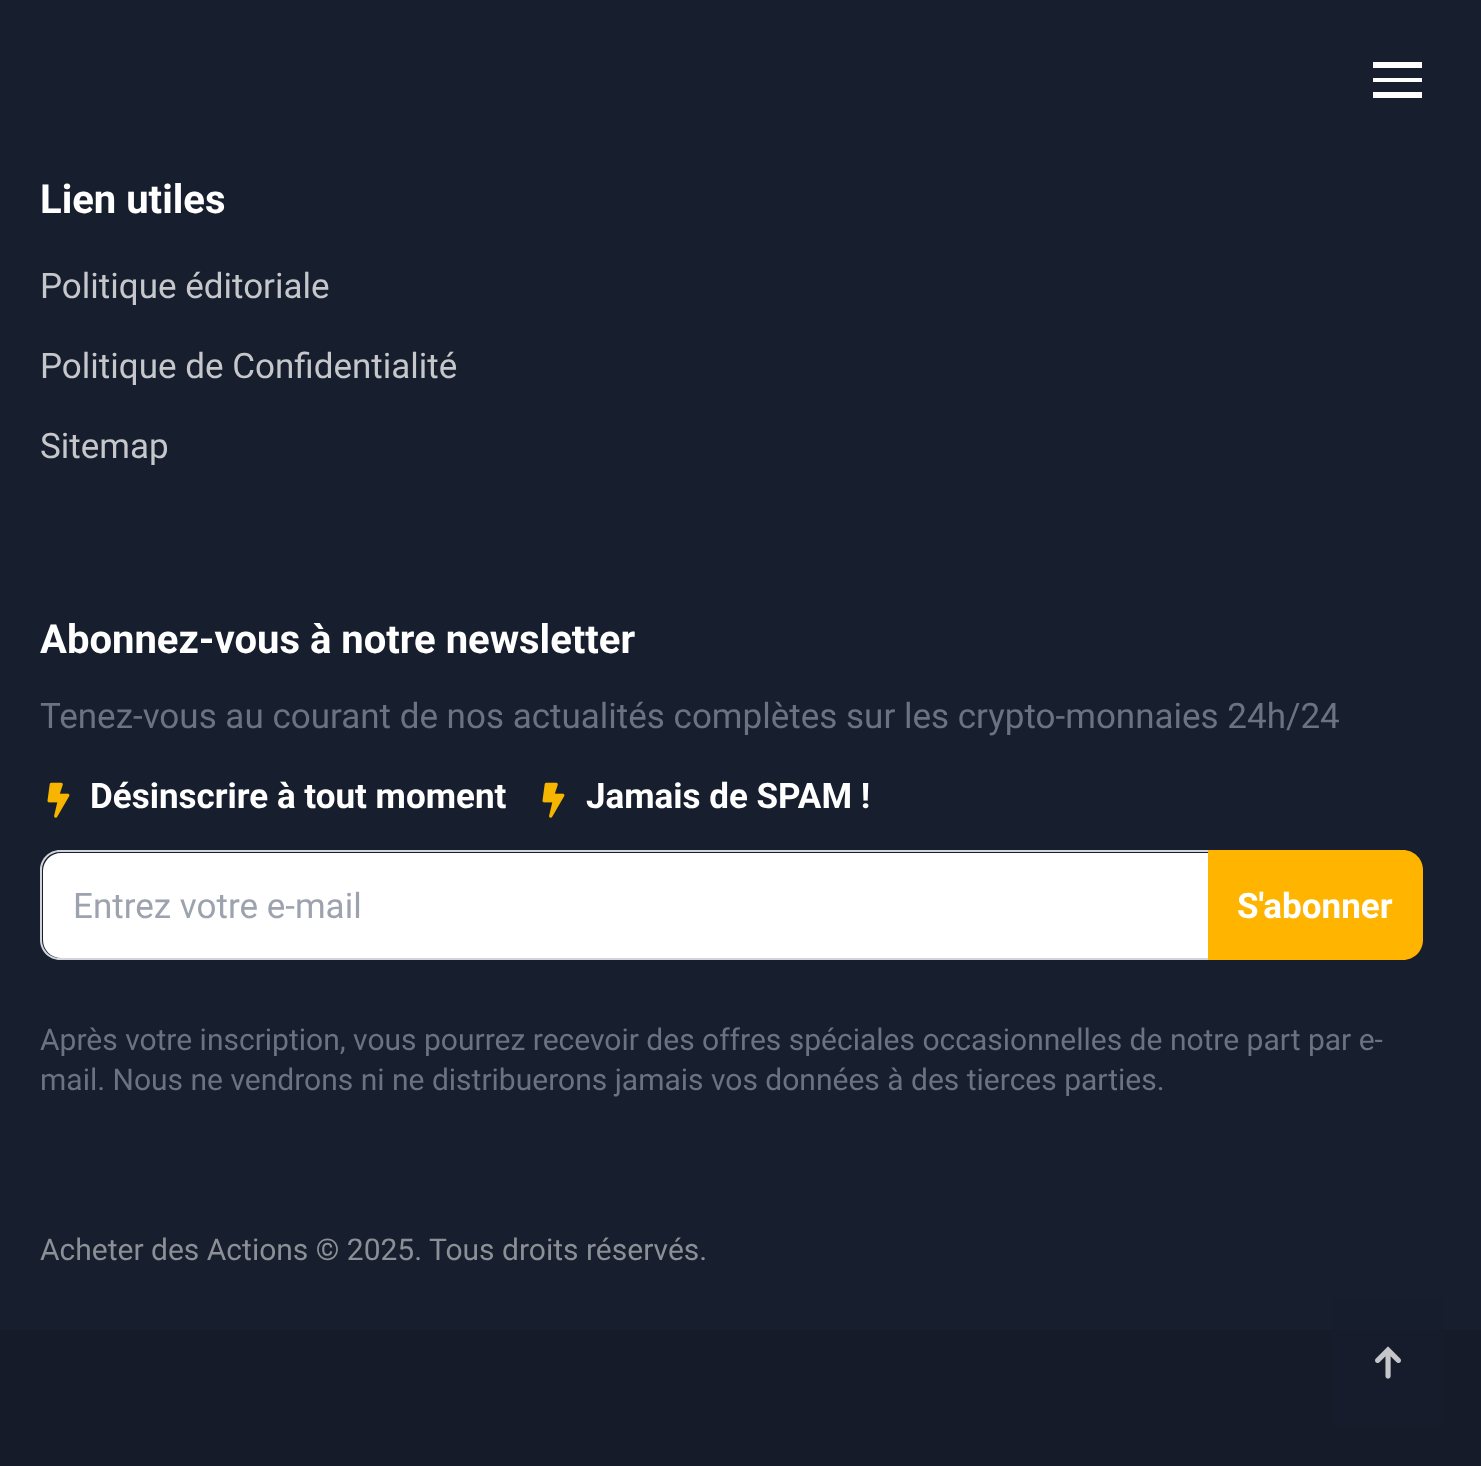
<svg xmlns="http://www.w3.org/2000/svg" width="1481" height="1466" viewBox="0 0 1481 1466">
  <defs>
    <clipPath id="clip1"><rect x="1373" y="55" width="50" height="50"/></clipPath>
  </defs>
  <rect width="100%" height="100%" fill="#171e2d"/>
  <g clip-path="url(#clip1)">
    <path d="M1372 62H1422V68H1372ZM1372 78H1422V82H1372ZM1372 92H1422V98H1372Z" fill="#ffffff"/>
  </g>
  <text x="40" y="213" font-family="Roboto" font-size="40" font-weight="bold" fill="#ffffff">Lien utiles</text>
  <text x="40" y="298" font-family="Roboto" font-size="35" fill="#c5c7cb">Politique éditoriale</text>
  <text x="40" y="378" font-family="Roboto" font-size="35" fill="#c5c7cb">Politique de Confidentialité</text>
  <text x="40" y="458" font-family="Roboto" font-size="35" fill="#c5c7cb">Sitemap</text>
  <text x="40" y="653" font-family="Roboto" font-size="40" font-weight="bold" fill="#ffffff">Abonnez-vous à notre newsletter</text>
  <text x="40" y="728" font-family="Roboto" font-size="35" fill="#6b7280">Tenez-vous au courant de nos actualités complètes sur les crypto-monnaies 24h/24</text>
  <image x="47" y="782" width="23" height="36" href="img1.png"/>
  <text x="90" y="808" font-family="Roboto" font-size="35" font-weight="bold" fill="#ffffff">Désinscrire à tout moment</text>
  <image x="542" y="782" width="23" height="36" href="img1.png"/>
  <text x="586" y="808" font-family="Roboto" font-size="35" font-weight="bold" fill="#ffffff">Jamais de SPAM !</text>
  <path d="M61 853H1208V958H61C51 958 43 950 43 940V871C43 861 51 853 61 853Z" fill="#ffffff"/>
  <path d="M60 850H1208V960H60C49 960 40 951 40 940V870C40 859 49 850 60 850ZM60 852H1208V958H60C50 958 42 950 42 940V870C42 860 50 852 60 852Z" fill="#d1d5db" fill-rule="evenodd"/>
  <text x="73" y="918" font-family="Roboto" font-size="35" fill="#9ca3af">Entrez votre e-mail</text>
  <path d="M1208 850H1403C1414 850 1423 859 1423 870V940C1423 951 1414 960 1403 960H1208Z" fill="#ffb400"/>
  <text x="1237" y="918" font-family="Roboto" font-size="35" font-weight="bold" fill="#ffffff">S'abonner</text>
  <text x="40" y="1050" font-family="Roboto" font-size="30" fill="#6b7280">Après votre inscription, vous pourrez recevoir des offres spéciales occasionnelles de notre part par e-</text>
  <text x="40" y="1090" font-family="Roboto" font-size="30" fill="#6b7280">mail. Nous ne vendrons ni ne distribuerons jamais vos données à des tierces parties.</text>
  <text x="40" y="1260" font-family="Roboto" font-size="30" fill="#8b8f96">Acheter des Actions © 2025. Tous droits réservés.</text>
  <rect x="0" y="1330" width="1481" height="136" fill="#151b29"/>
  <rect x="1333" y="1298" width="110" height="130" rx="5" fill="#171e2d" fill-opacity="0.75"/>
  <image x="1375" y="1346" width="26" height="33" href="img2.png"/>
</svg>
